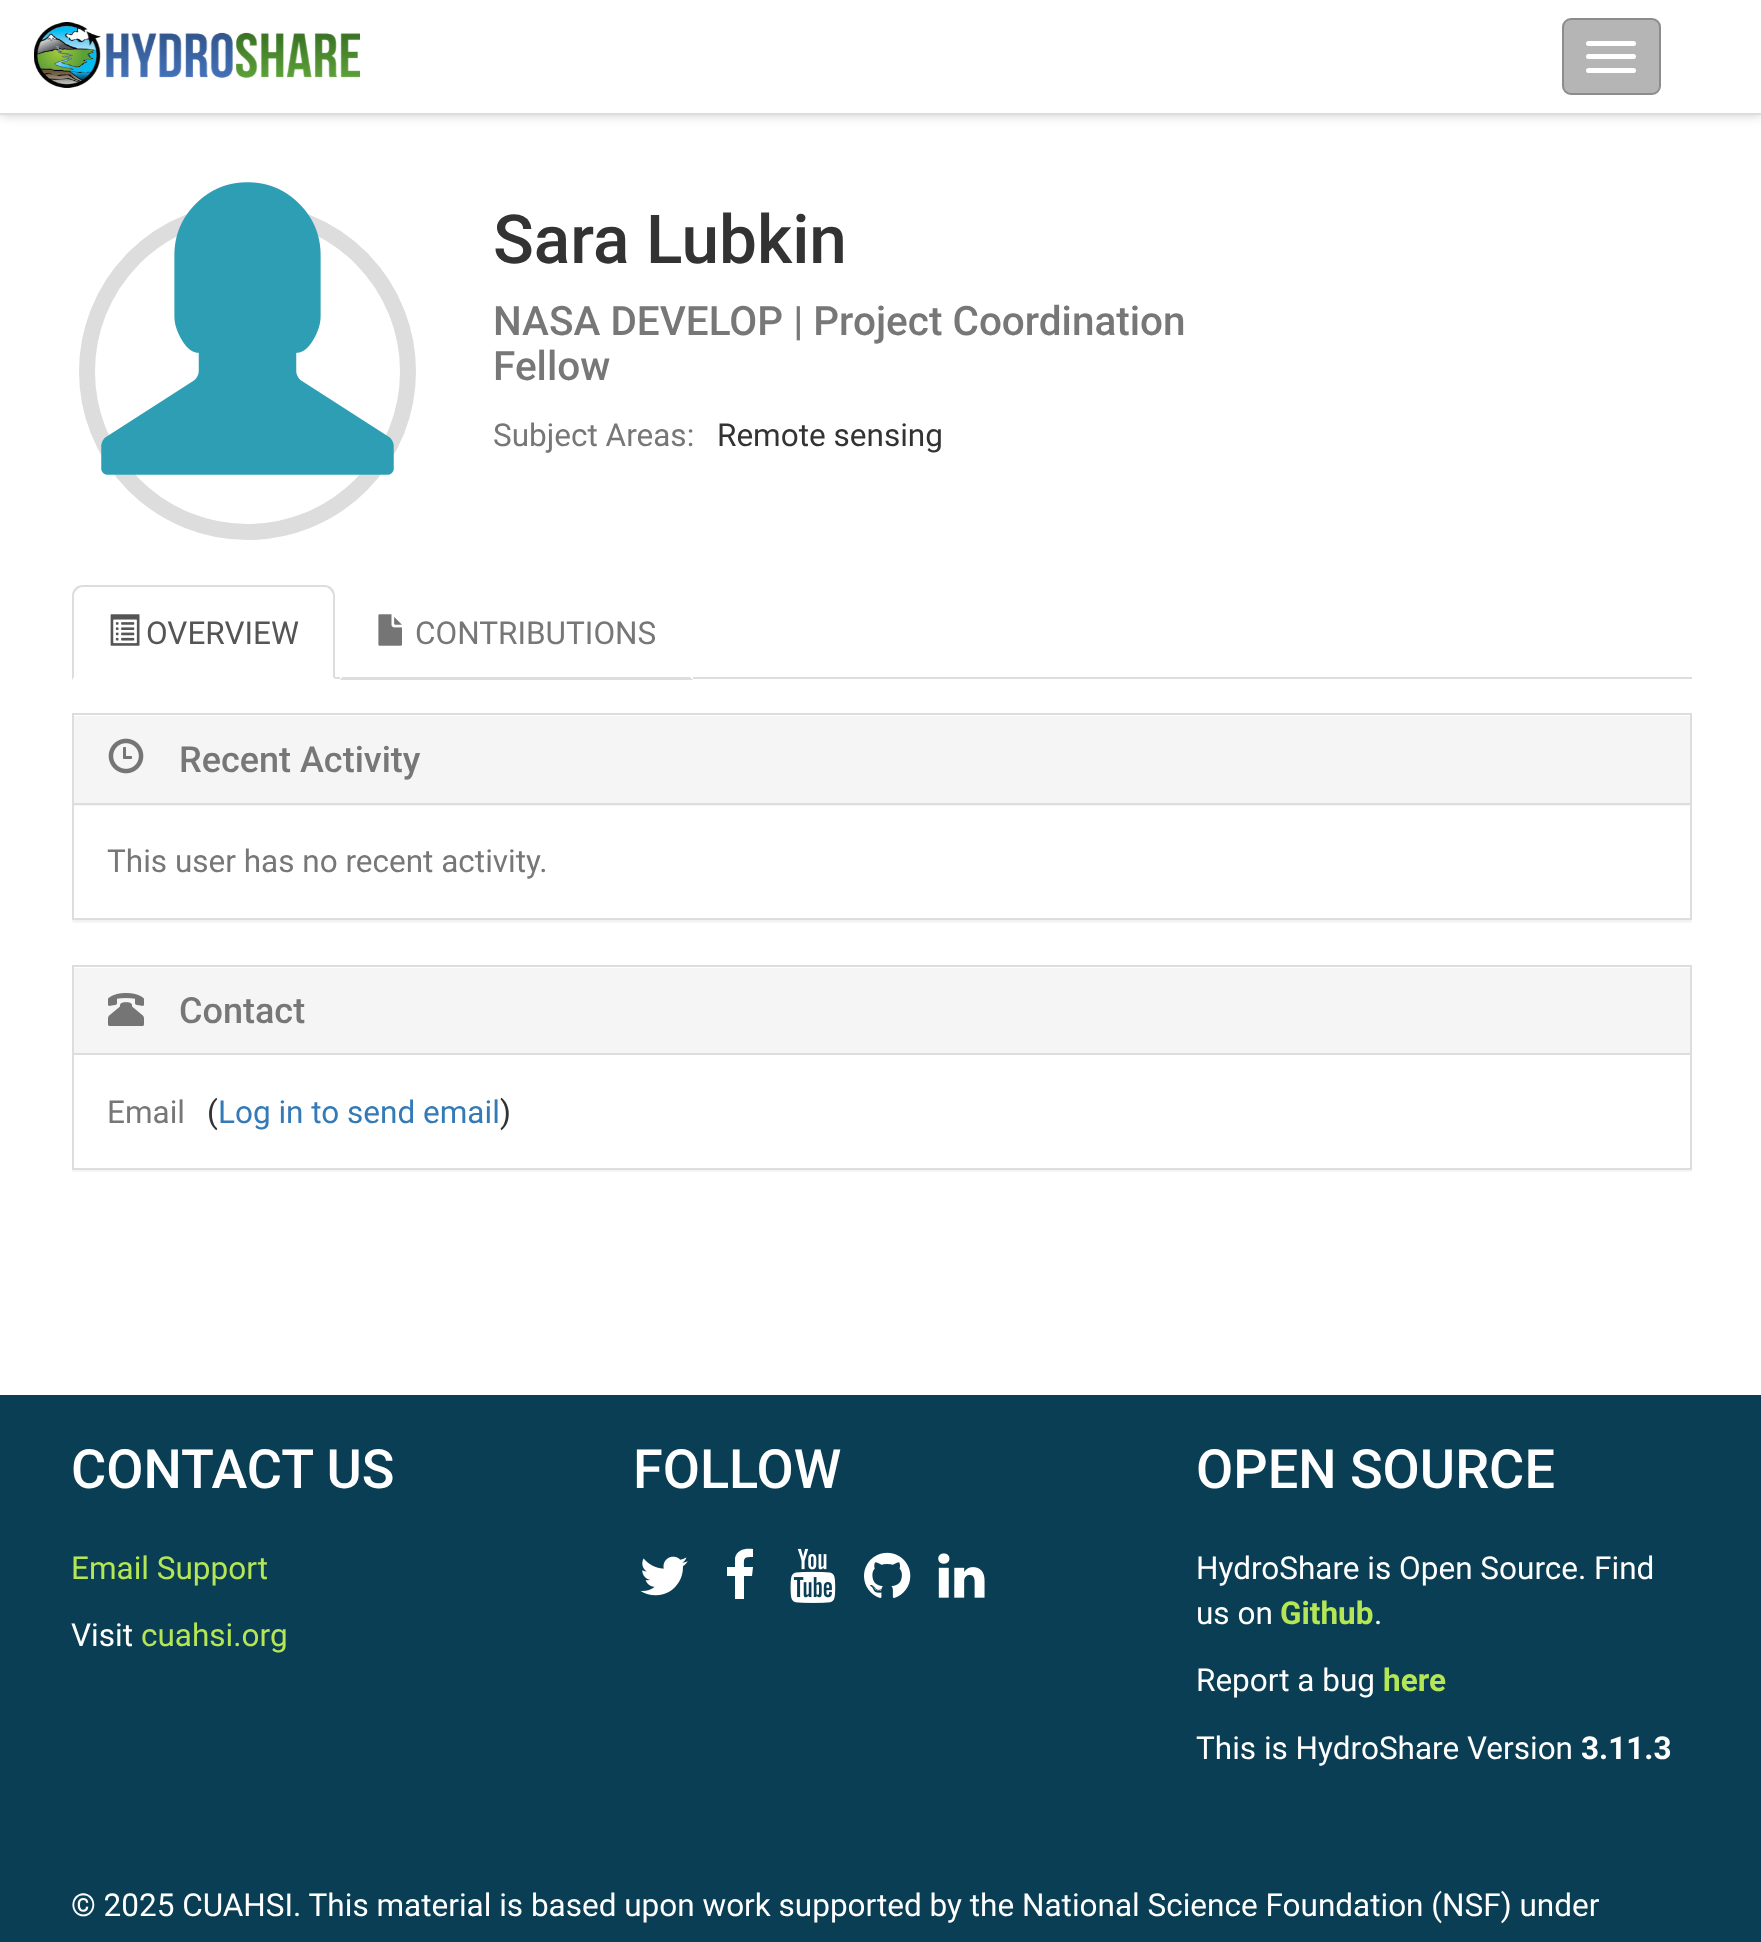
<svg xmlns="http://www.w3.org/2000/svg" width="1761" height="1942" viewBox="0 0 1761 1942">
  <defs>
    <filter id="blur1" x="-50%" y="-200%" width="200%" height="500%"><feGaussianBlur stdDeviation="5.5"/></filter>
    <clipPath id="clip1"><rect x="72" y="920" width="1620" height="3"/></clipPath>
    <filter id="blur2" x="-50%" y="-200%" width="200%" height="500%"><feGaussianBlur stdDeviation="1"/></filter>
    <clipPath id="clip2"><rect x="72" y="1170" width="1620" height="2"/></clipPath>
  </defs>
  <rect width="100%" height="100%" fill="#ffffff"/>
  <rect x="0" y="0" width="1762" height="115" fill="#000000" fill-opacity="0.2" filter="url(#blur1)"/>
  <rect x="0" y="0" width="1761" height="113" fill="#ffffff"/>
  <rect x="0" y="113" width="1761" height="2" fill="#dddddd"/>
  <image x="34" y="22" width="326" height="66" href="img1.png"/>
  <rect x="1563" y="19" width="97" height="75" rx="8" fill="#b5b5b5" stroke="#8c8c8c" stroke-width="2"/>
  <rect x="1586" y="41" width="50" height="5" rx="2.5" fill="#ffffff"/>
  <rect x="1586" y="54" width="50" height="5" rx="2.5" fill="#ffffff"/>
  <rect x="1586" y="68" width="50" height="5" rx="2.5" fill="#ffffff"/>
  <circle cx="247.5" cy="371.5" r="160.5" fill="none" stroke="#dddddd" stroke-width="16"/>
  <image x="101" y="182" width="293" height="293" href="img2.png"/>
  <text x="493" y="263" font-family="Roboto" font-size="67.5" font-weight="500" fill="#333333">Sara Lubkin</text>
  <text x="493" y="335" font-family="Roboto" font-size="40.5" font-weight="500" fill="#777777">NASA DEVELOP | Project Coordination</text>
  <text x="493" y="380" font-family="Roboto" font-size="40.5" font-weight="500" fill="#777777">Fellow</text>
  <text x="493" y="446" font-family="Roboto" font-size="31.5" fill="#777777">Subject Areas:</text>
  <text x="717" y="446" font-family="Roboto" font-size="31.5" fill="#333333">Remote sensing</text>
  <rect x="335" y="677" width="1357" height="2" fill="#dddddd"/>
  <path d="M83 585C80 585 77 586 75 588L77 590C78 588 80 587 83 587H324C327 587 329 588 330 590L332 588C330 586 327 585 324 585Z" fill="#dddddd"/>
  <path d="M332 588C334 590 335 593 335 596V679L333 677V596C333 594 332 591 330 590Z" fill="#dddddd"/>
  <path d="M72 680L74 677V596C74 594 75 591 77 590L75 588C73 590 72 593 72 596Z" fill="#dddddd"/>
  <image x="110" y="614" width="30" height="32" href="img3.png"/>
  <text x="146" y="644" font-family="Roboto" font-size="31.5" fill="#555555">OVERVIEW</text>
  <path d="M351 585H682C688 585 693 590 693 596V680H340V596C340 590 345 585 351 585Z" fill="#ffffff"/>
  <path d="M693 680H340L342 677H690Z" fill="#dedede"/>
  <image x="378" y="614" width="24" height="32" href="img4.png"/>
  <text x="415" y="644" font-family="Roboto" font-size="31.5" fill="#777777">CONTRIBUTIONS</text>
  <g clip-path="url(#clip1)">
    <rect x="72" y="716" width="1620" height="207" fill="#000000" fill-opacity="0.05" filter="url(#blur2)"/>
  </g>
  <rect x="73" y="714" width="1618" height="205" fill="none" stroke="#dddddd" stroke-width="2"/>
  <rect x="74" y="716" width="1616" height="90" fill="#f5f5f5"/>
  <rect x="74" y="803" width="1616" height="2" fill="#dddddd"/>
  <image x="108" y="738" width="36" height="36" href="img5.png"/>
  <text x="179" y="772" font-family="Roboto" font-size="36" font-weight="500" fill="#777777">Recent Activity</text>
  <text x="107" y="872" font-family="Roboto" font-size="31.5" fill="#777777">This user has no recent activity.</text>
  <g clip-path="url(#clip2)">
    <rect x="72" y="968" width="1620" height="204" fill="#000000" fill-opacity="0.05" filter="url(#blur2)"/>
  </g>
  <rect x="73" y="966" width="1618" height="203" fill="none" stroke="#dddddd" stroke-width="2"/>
  <rect x="74" y="968" width="1616" height="85" fill="#f5f5f5"/>
  <rect x="74" y="1053" width="1616" height="2" fill="#dddddd"/>
  <image x="108" y="993" width="36" height="33" href="img6.png"/>
  <text x="179" y="1023" font-family="Roboto" font-size="36" font-weight="500" fill="#777777">Contact</text>
  <text x="107" y="1123" font-family="Roboto" font-size="31.5" fill="#777777">Email</text>
  <text x="207" y="1123" font-family="Roboto" font-size="31.5" fill="#333333">(</text>
  <text x="218" y="1123" font-family="Roboto" font-size="31.5" fill="#337ab7">Log in to send email</text>
  <text x="500" y="1123" font-family="Roboto" font-size="31.5" fill="#333333">)</text>
  <rect x="0" y="1395" width="1761" height="547" fill="#093e54"/>
  <text x="71" y="1488" font-family="Roboto" font-size="54" font-weight="500" fill="#ffffff">CONTACT US</text>
  <text x="71" y="1579" font-family="Roboto" font-size="31.5" fill="#b5e655">Email Support</text>
  <text x="71" y="1646" font-family="Roboto" font-size="31.5" fill="#ffffff">Visit</text>
  <text x="141" y="1646" font-family="Roboto" font-size="31.5" fill="#b5e655">cuahsi.org</text>
  <text x="633" y="1488" font-family="Roboto" font-size="54" font-weight="500" fill="#ffffff">FOLLOW</text>
  <image x="640" y="1556" width="48" height="40" href="img7.png"/>
  <path d="M753 1549V1557C743 1557 744 1558 744 1567H753L752 1576H744V1599H735V1576H727V1567H735V1558C737 1549 746 1548 753 1549Z" fill="#ffffff"/>
  <image x="790" y="1548" width="46" height="55" href="img8.png"/>
  <image x="864" y="1552" width="47" height="46" href="img9.png"/>
  <image x="938" y="1553" width="47" height="45" href="img10.png"/>
  <text x="1196" y="1488" font-family="Roboto" font-size="54" font-weight="500" fill="#ffffff">OPEN SOURCE</text>
  <text x="1196" y="1579" font-family="Roboto" font-size="31.5" fill="#ffffff">HydroShare is Open Source. Find</text>
  <text x="1196" y="1624" font-family="Roboto" font-size="31.5" fill="#ffffff">us on</text>
  <text x="1280" y="1624" font-family="Roboto" font-size="31.5" font-weight="bold" fill="#b5e655">Github</text>
  <text x="1374" y="1624" font-family="Roboto" font-size="31.5" fill="#ffffff">.</text>
  <text x="1196" y="1691" font-family="Roboto" font-size="31.5" fill="#ffffff">Report a bug</text>
  <text x="1383" y="1691" font-family="Roboto" font-size="31.5" font-weight="bold" fill="#b5e655">here</text>
  <text x="1196" y="1759" font-family="Roboto" font-size="31.5" fill="#ffffff">This is HydroShare Version</text>
  <text x="1581" y="1759" font-family="Roboto" font-size="31.5" font-weight="bold" fill="#ffffff">3.11.3</text>
  <text x="71" y="1916" font-family="Roboto" font-size="31.5" fill="#ffffff">© 2025 CUAHSI. This material is based upon work supported by the National Science Foundation (NSF) under</text>
</svg>
